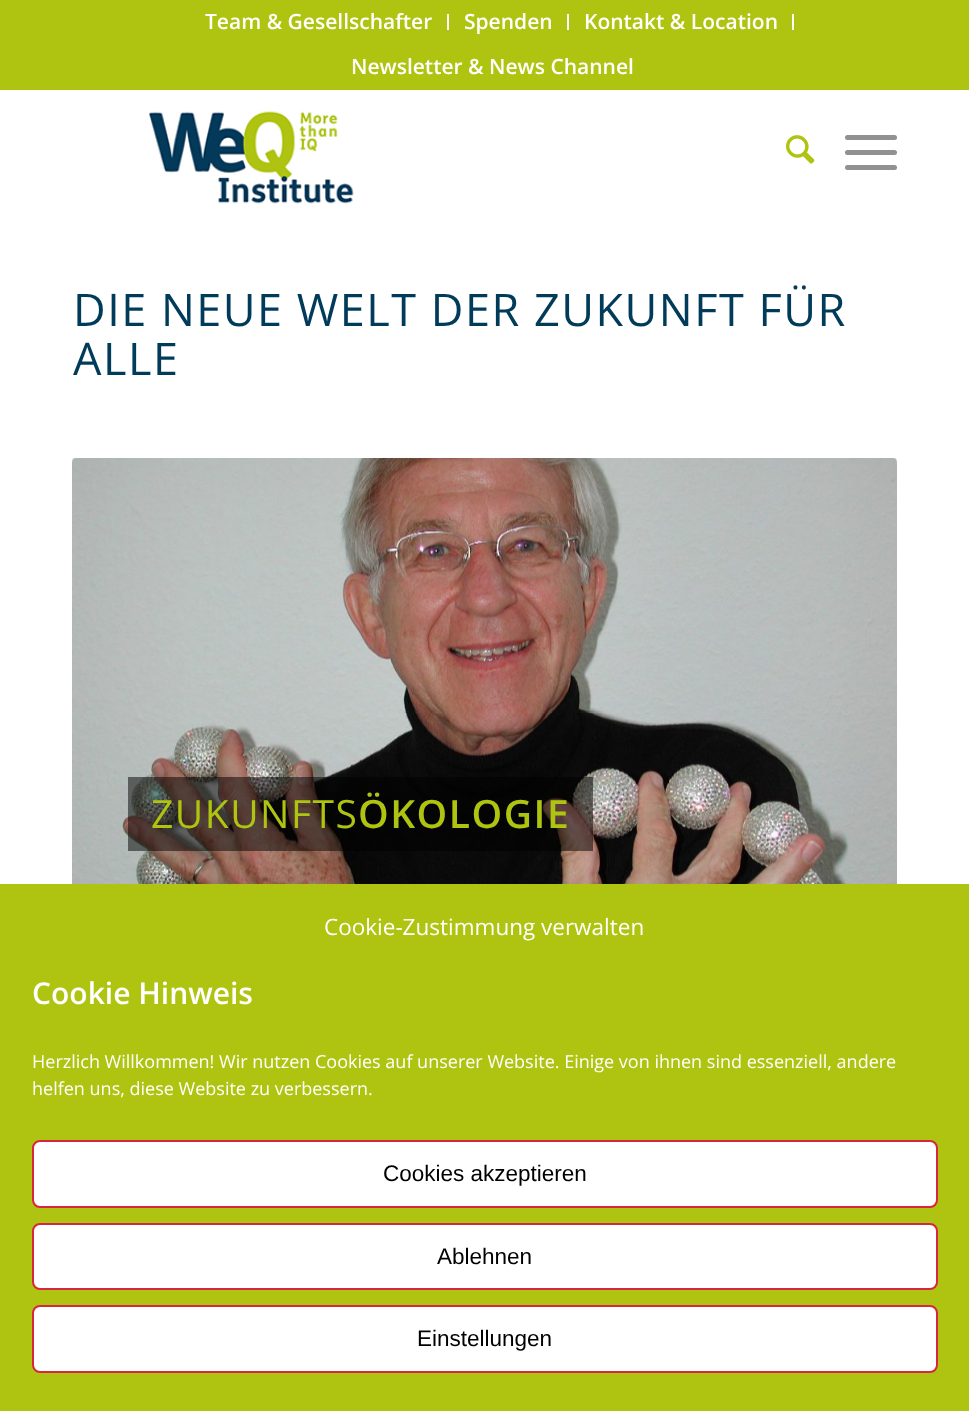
<svg xmlns="http://www.w3.org/2000/svg" width="969" height="1411" viewBox="0 0 969 1411">
  <rect width="100%" height="100%" fill="#ffffff"/>
  <rect x="0" y="0" width="969" height="90" fill="#afc410"/>
  <rect x="447" y="14" width="2" height="16" fill="#ffffff"/>
  <text x="205" y="29" font-family="Open Sans" font-size="21" font-weight="600" fill="#ffffff">Team &amp; Gesellschafter</text>
  <rect x="567" y="14" width="2" height="16" fill="#ffffff"/>
  <text x="464" y="29" font-family="Open Sans" font-size="21" font-weight="600" fill="#ffffff">Spenden</text>
  <rect x="792" y="14" width="2" height="16" fill="#ffffff"/>
  <text x="584" y="29" font-family="Open Sans" font-size="21" font-weight="600" fill="#ffffff">Kontakt &amp; Location</text>
  <text x="351" y="74" font-family="Open Sans" font-size="21" font-weight="600" fill="#ffffff">Newsletter &amp; News Channel</text>
  <image x="149" y="111" width="205" height="93" href="img1.png"/>
  <image x="786" y="135" width="29" height="29" href="img2.png"/>
  <rect x="845" y="150" width="52" height="5" rx="2.5" fill="#919191"/>
  <rect x="845" y="135" width="52" height="5" rx="2.5" fill="#919191"/>
  <rect x="845" y="165" width="52" height="5" rx="2.5" fill="#919191"/>
  <text x="73" y="326" font-family="Open Sans" font-size="45" letter-spacing="1.5" fill="#003b5a">DIE NEUE WELT DER ZUKUNFT FÜR</text>
  <text x="73" y="375" font-family="Open Sans" font-size="45" letter-spacing="1.5" fill="#003b5a">ALLE</text>
  <image x="72" y="458" width="825" height="426" href="img3.png"/>
  <rect x="128" y="777" width="465" height="74" fill="#000000" fill-opacity="0.5"/>
  <text x="151" y="828" font-family="Open Sans" font-size="39" letter-spacing="1.5" fill="#afc410">ZUKUNFTS</text>
  <text x="358" y="828" font-family="Open Sans" font-size="39" font-weight="600" letter-spacing="1.5" fill="#afc410">ÖKOLOGIE</text>
  <rect x="0" y="884" width="969" height="527" fill="#afc410"/>
  <text x="324" y="935" font-family="Open Sans" font-size="22.5" fill="#ffffff">Cookie-Zustimmung verwalten</text>
  <text x="32" y="1004" font-family="Open Sans" font-size="30" font-weight="600" fill="#ffffff">Cookie Hinweis</text>
  <text x="32" y="1068" font-family="Open Sans" font-size="18" fill="#ffffff">Herzlich Willkommen! Wir nutzen Cookies auf unserer Website. Einige von ihnen sind essenziell, andere</text>
  <text x="32" y="1095" font-family="Open Sans" font-size="18" fill="#ffffff">helfen uns, diese Website zu verbessern.</text>
  <rect x="33" y="1141" width="904" height="66" rx="7" fill="#ffffff" stroke="#d7263d" stroke-width="2"/>
  <text x="383" y="1181" font-family="Liberation Sans" font-size="22.5" fill="#000000">Cookies akzeptieren</text>
  <rect x="33" y="1224" width="904" height="65" rx="7" fill="#ffffff" stroke="#d7263d" stroke-width="2"/>
  <text x="437" y="1264" font-family="Liberation Sans" font-size="22.5" fill="#000000">Ablehnen</text>
  <rect x="33" y="1306" width="904" height="66" rx="7" fill="#ffffff" stroke="#d7263d" stroke-width="2"/>
  <text x="417" y="1346" font-family="Liberation Sans" font-size="22.5" fill="#000000">Einstellungen</text>
</svg>
